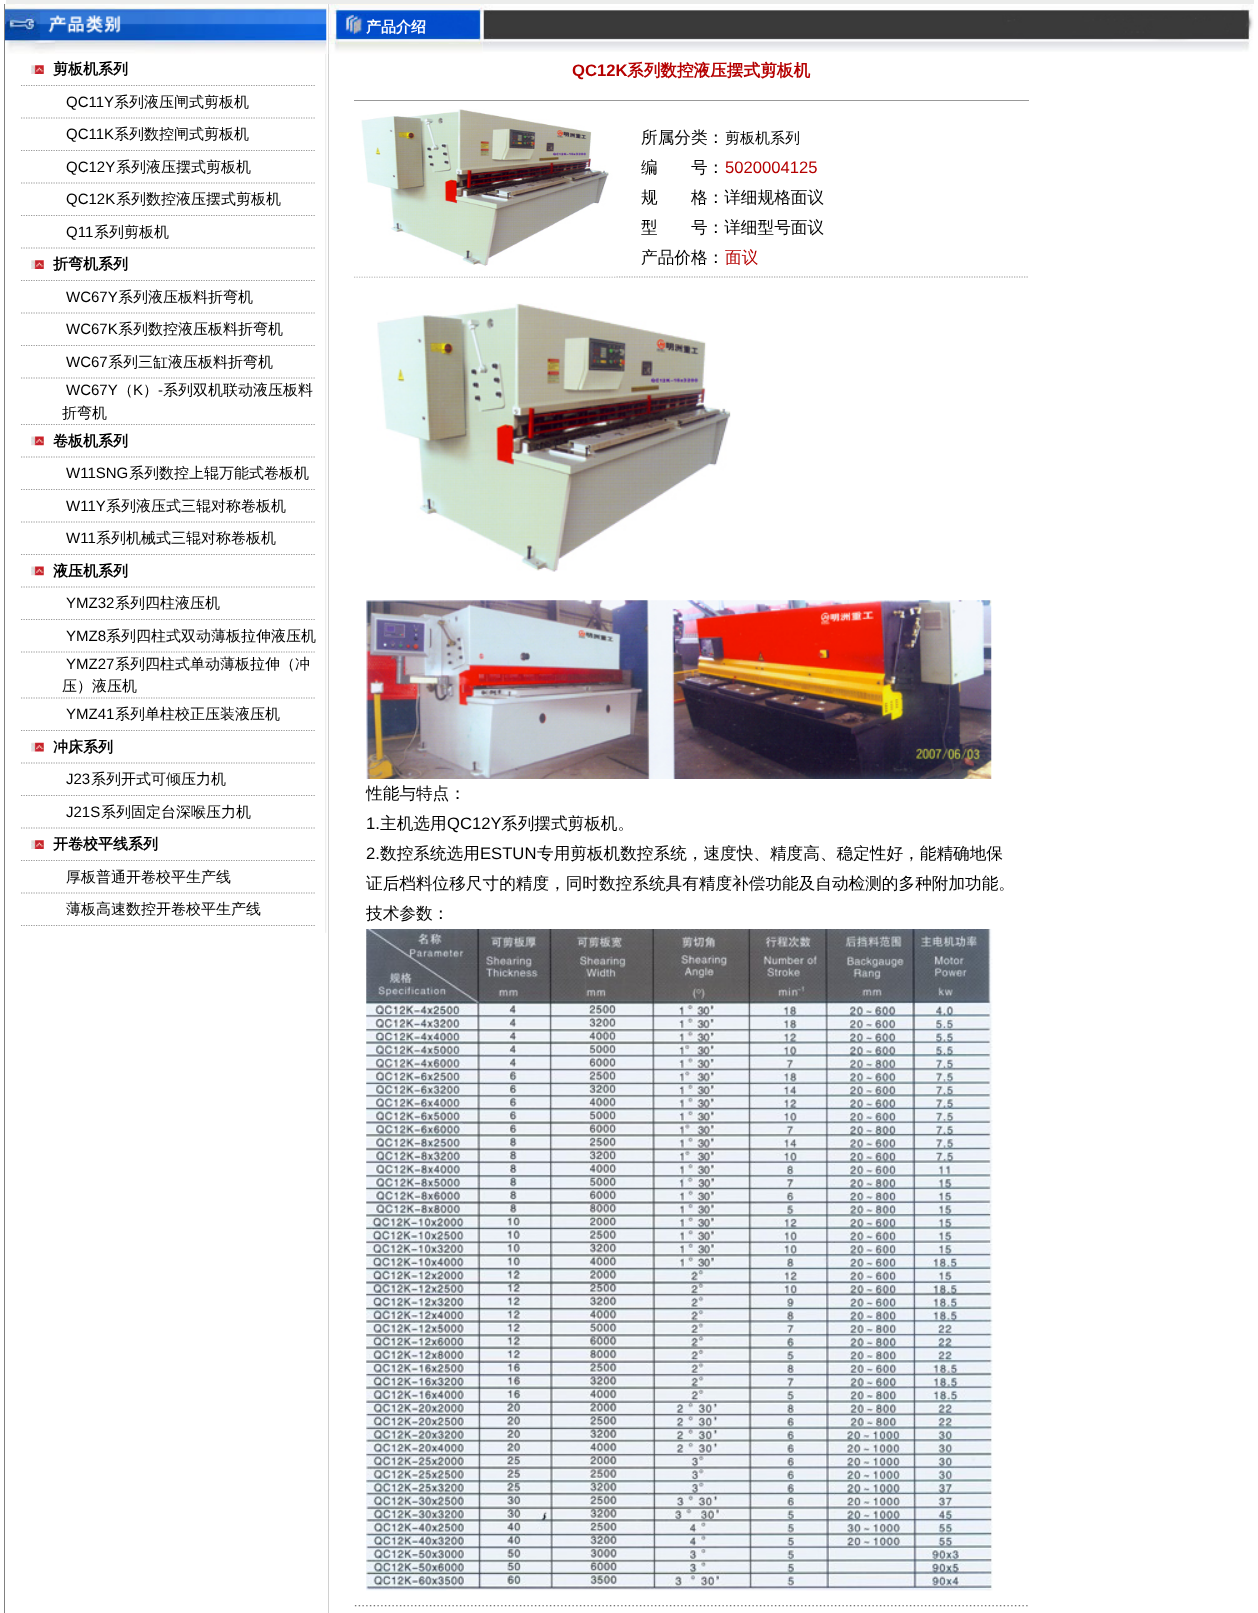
<svg xmlns="http://www.w3.org/2000/svg" width="1258" height="1613" viewBox="0 0 1258 1613">
  <rect width="100%" height="100%" fill="#ffffff"/>
  <rect x="6" y="0" width="1248" height="4" fill="#ecedec"/>
  <rect x="4" y="4" width="1" height="1609" fill="#808080"/>
  <rect x="328" y="4" width="1" height="1609" fill="#d0d0d0"/>
  <image x="325" y="4" width="2" height="929" href="img1.png"/>
  <image x="5" y="4" width="322" height="50" href="img2.png"/>
  <path d="M21 85.5H316" fill="none" stroke="#999999" stroke-width="1.2" stroke-dasharray="1.25 1.25"/>
  <image x="31" y="65" width="13" height="9" href="img3.png"/>
  <text x="53" y="74" font-family="WenQuanYi Zen Hei" font-size="15" font-weight="bold" fill="#000000">剪板机系列</text>
  <path d="M21 118H316" fill="none" stroke="#999999" stroke-width="1.2" stroke-dasharray="1.25 1.25"/>
  <text x="66" y="107" font-family="Liberation Sans" font-size="15" fill="#000000">QC11Y</text>
  <text x="114" y="107" font-family="WenQuanYi Zen Hei" font-size="15" font-weight="500" fill="#000000">系列液压闸式剪板机</text>
  <path d="M21 150.5H316" fill="none" stroke="#999999" stroke-width="1.2" stroke-dasharray="1.25 1.25"/>
  <text x="66" y="139" font-family="Liberation Sans" font-size="15" fill="#000000">QC11K</text>
  <text x="114" y="139" font-family="WenQuanYi Zen Hei" font-size="15" font-weight="500" fill="#000000">系列数控闸式剪板机</text>
  <path d="M21 183H316" fill="none" stroke="#999999" stroke-width="1.2" stroke-dasharray="1.25 1.25"/>
  <text x="66" y="172" font-family="Liberation Sans" font-size="15" fill="#000000">QC12Y</text>
  <text x="116" y="172" font-family="WenQuanYi Zen Hei" font-size="15" font-weight="500" fill="#000000">系列液压摆式剪板机</text>
  <path d="M21 215.5H316" fill="none" stroke="#999999" stroke-width="1.2" stroke-dasharray="1.25 1.25"/>
  <text x="66" y="204" font-family="Liberation Sans" font-size="15" fill="#000000">QC12K</text>
  <text x="116" y="204" font-family="WenQuanYi Zen Hei" font-size="15" font-weight="500" fill="#000000">系列数控液压摆式剪板机</text>
  <path d="M21 248H316" fill="none" stroke="#999999" stroke-width="1.2" stroke-dasharray="1.25 1.25"/>
  <text x="66" y="237" font-family="Liberation Sans" font-size="15" fill="#000000">Q11</text>
  <text x="94" y="237" font-family="WenQuanYi Zen Hei" font-size="15" font-weight="500" fill="#000000">系列剪板机</text>
  <path d="M21 280.5H316" fill="none" stroke="#999999" stroke-width="1.2" stroke-dasharray="1.25 1.25"/>
  <image x="31" y="260" width="13" height="9" href="img3.png"/>
  <text x="53" y="269" font-family="WenQuanYi Zen Hei" font-size="15" font-weight="bold" fill="#000000">折弯机系列</text>
  <path d="M21 313H316" fill="none" stroke="#999999" stroke-width="1.2" stroke-dasharray="1.25 1.25"/>
  <text x="66" y="302" font-family="Liberation Sans" font-size="15" fill="#000000">WC67Y</text>
  <text x="118" y="302" font-family="WenQuanYi Zen Hei" font-size="15" font-weight="500" fill="#000000">系列液压板料折弯机</text>
  <path d="M21 345.5H316" fill="none" stroke="#999999" stroke-width="1.2" stroke-dasharray="1.25 1.25"/>
  <text x="66" y="334" font-family="Liberation Sans" font-size="15" fill="#000000">WC67K</text>
  <text x="118" y="334" font-family="WenQuanYi Zen Hei" font-size="15" font-weight="500" fill="#000000">系列数控液压板料折弯机</text>
  <path d="M21 378H316" fill="none" stroke="#999999" stroke-width="1.2" stroke-dasharray="1.25 1.25"/>
  <text x="66" y="367" font-family="Liberation Sans" font-size="15" fill="#000000">WC67</text>
  <text x="108" y="367" font-family="WenQuanYi Zen Hei" font-size="15" font-weight="500" fill="#000000">系列三缸液压板料折弯机</text>
  <path d="M21 424.5H316" fill="none" stroke="#999999" stroke-width="1.2" stroke-dasharray="1.25 1.25"/>
  <text x="66" y="395" font-family="Liberation Sans" font-size="15" fill="#000000">WC67Y</text>
  <text x="118" y="395" font-family="WenQuanYi Zen Hei" font-size="15" font-weight="500" fill="#000000">（</text>
  <text x="133" y="395" font-family="Liberation Sans" font-size="15" fill="#000000">K</text>
  <text x="143" y="395" font-family="WenQuanYi Zen Hei" font-size="15" font-weight="500" fill="#000000">）</text>
  <text x="158" y="395" font-family="Liberation Sans" font-size="15" fill="#000000">-</text>
  <text x="163" y="395" font-family="WenQuanYi Zen Hei" font-size="15" font-weight="500" fill="#000000">系列双机联动液压板料</text>
  <text x="62" y="418" font-family="WenQuanYi Zen Hei" font-size="15" font-weight="500" fill="#000000">折弯机</text>
  <path d="M21 457H316" fill="none" stroke="#999999" stroke-width="1.2" stroke-dasharray="1.25 1.25"/>
  <image x="31" y="436" width="13" height="10" href="img4.png"/>
  <text x="53" y="446" font-family="WenQuanYi Zen Hei" font-size="15" font-weight="bold" fill="#000000">卷板机系列</text>
  <path d="M21 489.5H316" fill="none" stroke="#999999" stroke-width="1.2" stroke-dasharray="1.25 1.25"/>
  <text x="66" y="478" font-family="Liberation Sans" font-size="15" fill="#000000">W11SNG</text>
  <text x="129" y="478" font-family="WenQuanYi Zen Hei" font-size="15" font-weight="500" fill="#000000">系列数控上辊万能式卷板机</text>
  <path d="M21 522H316" fill="none" stroke="#999999" stroke-width="1.2" stroke-dasharray="1.25 1.25"/>
  <text x="66" y="511" font-family="Liberation Sans" font-size="15" fill="#000000">W11Y</text>
  <text x="106" y="511" font-family="WenQuanYi Zen Hei" font-size="15" font-weight="500" fill="#000000">系列液压式三辊对称卷板机</text>
  <path d="M21 554.5H316" fill="none" stroke="#999999" stroke-width="1.2" stroke-dasharray="1.25 1.25"/>
  <text x="66" y="543" font-family="Liberation Sans" font-size="15" fill="#000000">W11</text>
  <text x="96" y="543" font-family="WenQuanYi Zen Hei" font-size="15" font-weight="500" fill="#000000">系列机械式三辊对称卷板机</text>
  <path d="M21 587H316" fill="none" stroke="#999999" stroke-width="1.2" stroke-dasharray="1.25 1.25"/>
  <image x="31" y="566" width="13" height="10" href="img5.png"/>
  <text x="53" y="576" font-family="WenQuanYi Zen Hei" font-size="15" font-weight="bold" fill="#000000">液压机系列</text>
  <path d="M21 619.5H316" fill="none" stroke="#999999" stroke-width="1.2" stroke-dasharray="1.25 1.25"/>
  <text x="66" y="608" font-family="Liberation Sans" font-size="15" fill="#000000">YMZ32</text>
  <text x="115" y="608" font-family="WenQuanYi Zen Hei" font-size="15" font-weight="500" fill="#000000">系列四柱液压机</text>
  <path d="M21 652H316" fill="none" stroke="#999999" stroke-width="1.2" stroke-dasharray="1.25 1.25"/>
  <text x="66" y="641" font-family="Liberation Sans" font-size="15" fill="#000000">YMZ8</text>
  <text x="106" y="641" font-family="WenQuanYi Zen Hei" font-size="15" font-weight="500" fill="#000000">系列四柱式双动薄板拉伸液压机</text>
  <path d="M21 698H316" fill="none" stroke="#999999" stroke-width="1.2" stroke-dasharray="1.25 1.25"/>
  <text x="66" y="669" font-family="Liberation Sans" font-size="15" fill="#000000">YMZ27</text>
  <text x="115" y="669" font-family="WenQuanYi Zen Hei" font-size="15" font-weight="500" fill="#000000">系列四柱式单动薄板拉伸（冲</text>
  <text x="62" y="691" font-family="WenQuanYi Zen Hei" font-size="15" font-weight="500" fill="#000000">压）液压机</text>
  <path d="M21 730.5H316" fill="none" stroke="#999999" stroke-width="1.2" stroke-dasharray="1.25 1.25"/>
  <text x="66" y="719" font-family="Liberation Sans" font-size="15" fill="#000000">YMZ41</text>
  <text x="115" y="719" font-family="WenQuanYi Zen Hei" font-size="15" font-weight="500" fill="#000000">系列单柱校正压装液压机</text>
  <path d="M21 763H316" fill="none" stroke="#999999" stroke-width="1.2" stroke-dasharray="1.25 1.25"/>
  <image x="31" y="742" width="13" height="10" href="img6.png"/>
  <text x="53" y="752" font-family="WenQuanYi Zen Hei" font-size="15" font-weight="bold" fill="#000000">冲床系列</text>
  <path d="M21 795.5H316" fill="none" stroke="#999999" stroke-width="1.2" stroke-dasharray="1.25 1.25"/>
  <text x="66" y="784" font-family="Liberation Sans" font-size="15" fill="#000000">J23</text>
  <text x="91" y="784" font-family="WenQuanYi Zen Hei" font-size="15" font-weight="500" fill="#000000">系列开式可倾压力机</text>
  <path d="M21 828H316" fill="none" stroke="#999999" stroke-width="1.2" stroke-dasharray="1.25 1.25"/>
  <text x="66" y="817" font-family="Liberation Sans" font-size="15" fill="#000000">J21S</text>
  <text x="101" y="817" font-family="WenQuanYi Zen Hei" font-size="15" font-weight="500" fill="#000000">系列固定台深喉压力机</text>
  <path d="M21 860.5H316" fill="none" stroke="#999999" stroke-width="1.2" stroke-dasharray="1.25 1.25"/>
  <image x="31" y="840" width="13" height="9" href="img3.png"/>
  <text x="53" y="849" font-family="WenQuanYi Zen Hei" font-size="15" font-weight="bold" fill="#000000">开卷校平线系列</text>
  <path d="M21 893H316" fill="none" stroke="#999999" stroke-width="1.2" stroke-dasharray="1.25 1.25"/>
  <text x="66" y="882" font-family="WenQuanYi Zen Hei" font-size="15" font-weight="500" fill="#000000">厚板普通开卷校平生产线</text>
  <path d="M21 925.5H316" fill="none" stroke="#999999" stroke-width="1.2" stroke-dasharray="1.25 1.25"/>
  <text x="66" y="914" font-family="WenQuanYi Zen Hei" font-size="15" font-weight="500" fill="#000000">薄板高速数控开卷校平生产线</text>
  <image x="328" y="4" width="155" height="50" href="img7.png"/>
  <text x="366" y="32" font-family="WenQuanYi Zen Hei" font-size="15" font-weight="bold" fill="#ffffff">产品介绍</text>
  <image x="482" y="4" width="772" height="48" href="img8.png"/>
  <rect x="354" y="100" width="675" height="1" fill="#999999"/>
  <text x="572" y="76" font-family="Liberation Sans" font-size="16.65" font-weight="bold" fill="#b50000">QC12K</text>
  <text x="627" y="76" font-family="WenQuanYi Zen Hei" font-size="16.65" font-weight="bold" fill="#b50000">系列数控液压摆式剪板机</text>
  <path d="M354 277H1029" fill="none" stroke="#999999" stroke-width="1.2" stroke-dasharray="1.25 1.25"/>
  <image x="354" y="109" width="262" height="168" href="img9.png"/>
  <text x="641" y="143" font-family="WenQuanYi Zen Hei" font-size="16.65" font-weight="500" fill="#000000">所属分类：</text>
  <text x="725" y="143" font-family="WenQuanYi Zen Hei" font-size="15" font-weight="500" fill="#000000">剪板机系列</text>
  <text x="641" y="173" font-family="WenQuanYi Zen Hei" font-size="16.65" font-weight="500" fill="#000000">编　　号：</text>
  <text x="725" y="173" font-family="Liberation Sans" font-size="16.65" fill="#b50000">5020004125</text>
  <text x="641" y="203" font-family="WenQuanYi Zen Hei" font-size="16.65" font-weight="500" fill="#000000">规　　格：详细规格面议</text>
  <text x="641" y="233" font-family="WenQuanYi Zen Hei" font-size="16.65" font-weight="500" fill="#000000">型　　号：详细型号面议</text>
  <text x="641" y="263" font-family="WenQuanYi Zen Hei" font-size="16.65" font-weight="500" fill="#000000">产品价格：</text>
  <text x="725" y="263" font-family="WenQuanYi Zen Hei" font-size="16.65" font-weight="500" fill="#b50000">面议</text>
  <image x="377" y="303" width="354" height="269" href="img10.png"/>
  <image x="366" y="600" width="626" height="179" href="img11.png"/>
  <text x="366" y="799" font-family="WenQuanYi Zen Hei" font-size="16.65" font-weight="500" fill="#000000">性能与特点：</text>
  <text x="366" y="829" font-family="Liberation Sans" font-size="16.65" fill="#000000">1.</text>
  <text x="380" y="829" font-family="WenQuanYi Zen Hei" font-size="16.65" font-weight="500" fill="#000000">主机选用</text>
  <text x="447" y="829" font-family="Liberation Sans" font-size="16.65" fill="#000000">QC12Y</text>
  <text x="501" y="829" font-family="WenQuanYi Zen Hei" font-size="16.65" font-weight="500" fill="#000000">系列摆式剪板机。</text>
  <text x="366" y="859" font-family="Liberation Sans" font-size="16.65" fill="#000000">2.</text>
  <text x="380" y="859" font-family="WenQuanYi Zen Hei" font-size="16.65" font-weight="500" fill="#000000">数控系统选用</text>
  <text x="480" y="859" font-family="Liberation Sans" font-size="16.65" fill="#000000">ESTUN</text>
  <text x="537" y="859" font-family="WenQuanYi Zen Hei" font-size="16.65" font-weight="500" fill="#000000">专用剪板机数控系统，速度快、精度高、稳定性好，能精确地保</text>
  <text x="366" y="889" font-family="WenQuanYi Zen Hei" font-size="16.65" font-weight="500" fill="#000000">证后档料位移尺寸的精度，同时数控系统具有精度补偿功能及自动检测的多种附加功能。</text>
  <text x="366" y="919" font-family="WenQuanYi Zen Hei" font-size="16.65" font-weight="500" fill="#000000">技术参数：</text>
  <image x="366" y="929" width="627" height="662" href="img12.png"/>
  <image x="354" y="1605" width="674" height="2" href="img13.png"/>
</svg>
